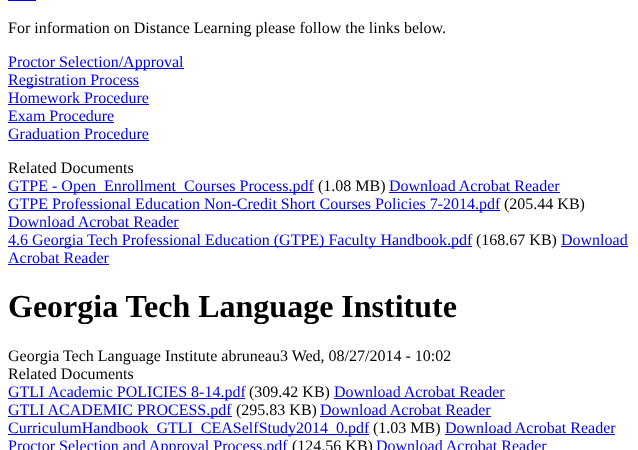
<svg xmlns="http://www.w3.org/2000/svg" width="638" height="450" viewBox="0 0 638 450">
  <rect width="100%" height="100%" fill="#ffffff"/>
  <rect x="8" y="0" width="28" height="1" fill="#0000ee"/>
  <text x="8" y="33" font-family="Liberation Serif" font-size="16" fill="#000000">For information on Distance Learning please follow the links below.</text>
  <rect x="8" y="68" width="176" height="1" fill="#0000ee"/>
  <text x="8" y="67" font-family="Liberation Serif" font-size="16" fill="#0000ee">Proctor Selection/Approval</text>
  <rect x="8" y="86" width="131" height="1" fill="#0000ee"/>
  <text x="8" y="85" font-family="Liberation Serif" font-size="16" fill="#0000ee">Registration Process</text>
  <text x="8" y="103" font-family="Liberation Serif" font-size="16" fill="#0000ee">Homework Procedure</text>
  <rect x="8" y="104" width="141" height="1" fill="#0000ee"/>
  <text x="8" y="121" font-family="Liberation Serif" font-size="16" fill="#0000ee">Exam Procedure</text>
  <rect x="8" y="122" width="106" height="1" fill="#0000ee"/>
  <text x="8" y="139" font-family="Liberation Serif" font-size="16" fill="#0000ee">Graduation Procedure</text>
  <rect x="8" y="140" width="141" height="1" fill="#0000ee"/>
  <text x="8" y="173" font-family="Liberation Serif" font-size="16" fill="#000000">Related Documents</text>
  <rect x="8" y="192" width="306" height="1" fill="#0000ee"/>
  <text x="8" y="191" font-family="Liberation Serif" font-size="16" fill="#0000ee">GTPE - Open_Enrollment_Courses Process.pdf</text>
  <text x="318" y="191" font-family="Liberation Serif" font-size="16" fill="#000000">(1.08 MB)</text>
  <text x="389" y="191" font-family="Liberation Serif" font-size="16" fill="#0000ee">Download Acrobat Reader</text>
  <rect x="389" y="192" width="171" height="1" fill="#0000ee"/>
  <rect x="8" y="210" width="492" height="1" fill="#0000ee"/>
  <text x="8" y="209" font-family="Liberation Serif" font-size="16" fill="#0000ee">GTPE Professional Education Non-Credit Short Courses Policies 7-2014.pdf</text>
  <text x="504" y="209" font-family="Liberation Serif" font-size="16" fill="#000000">(205.44 KB)</text>
  <text x="8" y="227" font-family="Liberation Serif" font-size="16" fill="#0000ee">Download Acrobat Reader</text>
  <rect x="8" y="228" width="171" height="1" fill="#0000ee"/>
  <rect x="8" y="246" width="464" height="1" fill="#0000ee"/>
  <text x="8" y="245" font-family="Liberation Serif" font-size="16" fill="#0000ee">4.6 Georgia Tech Professional Education (GTPE) Faculty Handbook.pdf</text>
  <text x="476" y="245" font-family="Liberation Serif" font-size="16" fill="#000000">(168.67 KB)</text>
  <text x="561" y="245" font-family="Liberation Serif" font-size="16" fill="#0000ee">Download</text>
  <rect x="561" y="246" width="67" height="1" fill="#0000ee"/>
  <text x="8" y="263" font-family="Liberation Serif" font-size="16" fill="#0000ee">Acrobat Reader</text>
  <rect x="8" y="264" width="101" height="1" fill="#0000ee"/>
  <text x="8" y="317" font-family="Liberation Serif" font-size="32" font-weight="bold" fill="#000000">Georgia Tech Language Institute</text>
  <text x="8" y="361" font-family="Liberation Serif" font-size="16" fill="#000000">Georgia Tech Language Institute abruneau3 Wed, 08/27/2014 - 10:02</text>
  <text x="8" y="379" font-family="Liberation Serif" font-size="16" fill="#000000">Related Documents</text>
  <text x="8" y="397" font-family="Liberation Serif" font-size="16" fill="#0000ee">GTLI</text>
  <rect x="8" y="398" width="237" height="1" fill="#0000ee"/>
  <text x="48" y="397" font-family="Liberation Serif" font-size="16" fill="#0000ee">Academic POLICIES 8-14.pdf</text>
  <text x="249" y="397" font-family="Liberation Serif" font-size="16" fill="#000000">(309.42 KB)</text>
  <text x="334" y="397" font-family="Liberation Serif" font-size="16" fill="#0000ee">Download Acrobat Reader</text>
  <rect x="334" y="398" width="171" height="1" fill="#0000ee"/>
  <rect x="8" y="416" width="224" height="1" fill="#0000ee"/>
  <text x="8" y="415" font-family="Liberation Serif" font-size="16" fill="#0000ee">GTLI ACADEMIC PROCESS.pdf</text>
  <text x="236" y="415" font-family="Liberation Serif" font-size="16" fill="#000000">(295.83 KB)</text>
  <text x="320" y="415" font-family="Liberation Serif" font-size="16" fill="#0000ee">Download Acrobat Reader</text>
  <rect x="320" y="416" width="171" height="1" fill="#0000ee"/>
  <rect x="8" y="434" width="361" height="1" fill="#0000ee"/>
  <text x="8" y="433" font-family="Liberation Serif" font-size="16" fill="#0000ee">CurriculumHandbook_GTLI_CEASelfStudy2014_0.pdf</text>
  <text x="373" y="433" font-family="Liberation Serif" font-size="16" fill="#000000">(1.03 MB)</text>
  <text x="445" y="433" font-family="Liberation Serif" font-size="16" fill="#0000ee">Download Acrobat Reader</text>
  <rect x="445" y="434" width="170" height="1" fill="#0000ee"/>
  <text x="8" y="451" font-family="Liberation Serif" font-size="16" fill="#0000ee">Proctor Selection and Approval Process.pdf</text>
  <text x="292" y="451" font-family="Liberation Serif" font-size="16" fill="#000000">(124.56 KB)</text>
  <text x="376" y="451" font-family="Liberation Serif" font-size="16" fill="#0000ee">Download Acrobat Reader</text>
</svg>
